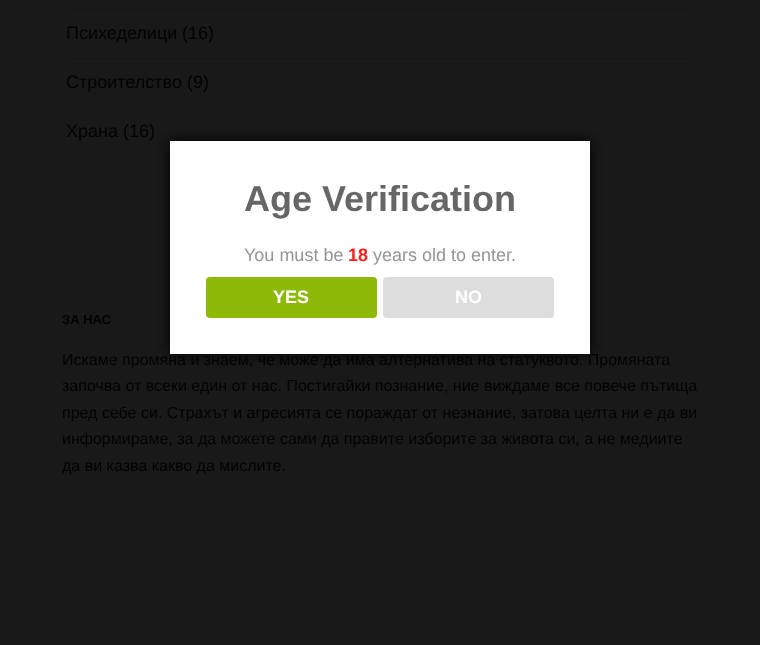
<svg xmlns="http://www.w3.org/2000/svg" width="760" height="645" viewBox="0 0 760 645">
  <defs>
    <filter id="blur1" x="-50%" y="-200%" width="200%" height="500%"><feGaussianBlur stdDeviation="7.5"/></filter>
  </defs>
  <rect width="100%" height="100%" fill="#191919"/>
  <rect x="66" y="9" width="628" height="1" fill="#161616"/>
  <rect x="66" y="58" width="628" height="1" fill="#161616"/>
  <text x="66" y="39" font-family="Liberation Sans" font-size="18" fill="#030303">Психеделици</text>
  <text x="182" y="39" font-family="Liberation Sans" font-size="18" fill="#030303">(16)</text>
  <rect x="66" y="107" width="628" height="1" fill="#161616"/>
  <text x="66" y="88" font-family="Liberation Sans" font-size="18" fill="#030303">Строителство</text>
  <text x="187" y="88" font-family="Liberation Sans" font-size="18" fill="#030303">(9)</text>
  <rect x="66" y="156" width="628" height="1" fill="#161616"/>
  <text x="66" y="137" font-family="Liberation Sans" font-size="18" fill="#030303">Храна</text>
  <text x="123" y="137" font-family="Liberation Sans" font-size="18" fill="#030303">(16)</text>
  <text x="62" y="324" font-family="Liberation Sans" font-size="13" font-weight="bold" fill="#030303">ЗА НАС</text>
  <text x="62" y="365" font-family="Liberation Sans" font-size="16" fill="#030303">Искаме промяна и знаем, че може да има алтернатива на статуквото. Промяната</text>
  <text x="62" y="391" font-family="Liberation Sans" font-size="16" fill="#030303">започва от всеки един от нас. Постигайки познание, ние виждаме все повече пътища</text>
  <text x="62" y="418" font-family="Liberation Sans" font-size="16" fill="#030303">пред себе си. Страхът и агресията се пораждат от незнание, затова целта ни е да ви</text>
  <text x="62" y="444" font-family="Liberation Sans" font-size="16" fill="#030303">информираме, за да можете сами да правите изборите за живота си, а не медиите</text>
  <text x="62" y="471" font-family="Liberation Sans" font-size="16" fill="#030303">да ви казва какво да мислите.</text>
  <rect x="170" y="141" width="420" height="213" fill="#000000" filter="url(#blur1)"/>
  <rect x="170" y="141" width="420" height="213" fill="#ffffff"/>
  <text x="244" y="211" font-family="Liberation Sans" font-size="36" font-weight="bold" fill="#666666">Age Verification</text>
  <text x="244" y="261" font-family="Liberation Sans" font-size="18" fill="#959595">You must be</text>
  <text x="348" y="261" font-family="Liberation Sans" font-size="18" font-weight="bold" fill="#ff1f1f">18</text>
  <text x="373" y="261" font-family="Liberation Sans" font-size="18" fill="#959595">years old to enter.</text>
  <rect x="206" y="277" width="171" height="41" rx="4" fill="#8eb908"/>
  <text x="273" y="303" font-family="Liberation Sans" font-size="18" font-weight="bold" fill="#ffffff">YES</text>
  <rect x="383" y="277" width="171" height="41" rx="4" fill="#dddddd"/>
  <text x="455" y="303" font-family="Liberation Sans" font-size="18" font-weight="bold" fill="#ffffff">NO</text>
</svg>
